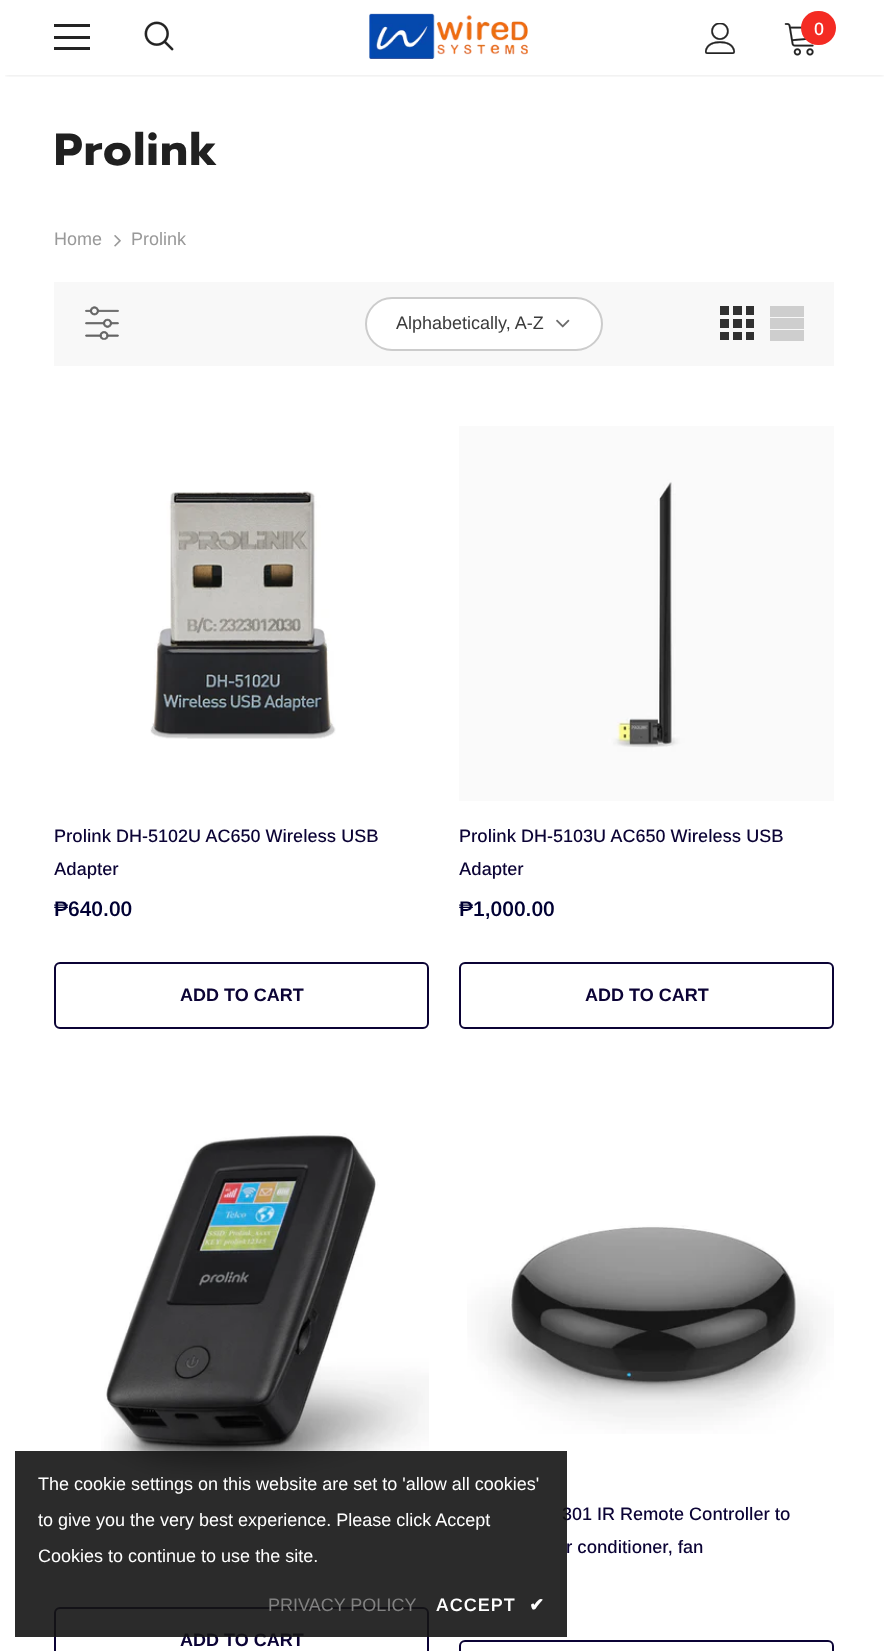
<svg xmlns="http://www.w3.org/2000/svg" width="888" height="1651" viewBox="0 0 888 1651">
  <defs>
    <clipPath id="clip1"><rect x="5" y="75" width="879" height="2"/></clipPath>
    <filter id="blur1" x="-50%" y="-200%" width="200%" height="500%"><feGaussianBlur stdDeviation="2"/></filter>
  </defs>
  <rect width="100%" height="100%" fill="#ffffff"/>
  <g clip-path="url(#clip1)">
    <rect x="5" y="9" width="879" height="66" fill="#000000" fill-opacity="0.12" filter="url(#blur1)"/>
  </g>
  <rect x="54" y="24" width="36" height="3" fill="#232323"/>
  <rect x="54" y="36" width="36" height="3" fill="#232323"/>
  <rect x="54" y="47" width="36" height="3" fill="#232323"/>
  <image x="144" y="21" width="30" height="30" href="img1.png"/>
  <image x="369" y="13" width="159" height="46" href="img2.png"/>
  <image x="705" y="23" width="31" height="31" href="img3.png"/>
  <image x="784" y="23" width="30" height="33" href="img4.png"/>
  <rect x="801" y="11" width="35" height="34" rx="17" fill="#f42b23"/>
  <text x="814" y="35" font-family="Arimo" font-size="18" font-weight="500" fill="#ffffff">0</text>
  <text x="54" y="165" font-family="Prompt" font-size="45" font-weight="bold" letter-spacing="1.25" fill="#202020">Prolink</text>
  <text x="54" y="245" font-family="Arimo" font-size="18" fill="#999999">Home</text>
  <image x="114" y="235" width="7" height="12" href="img5.png"/>
  <text x="131" y="245" font-family="Arimo" font-size="18" fill="#999999">Prolink</text>
  <rect x="54" y="282" width="780" height="84" fill="#f8f8f8"/>
  <image x="85" y="306" width="34" height="34" href="img6.png"/>
  <rect x="366" y="298" width="236" height="52" rx="26" fill="#ffffff" stroke="#cccccc" stroke-width="2"/>
  <text x="396" y="329" font-family="Arimo" font-size="18" fill="#3c3c3c">Alphabetically, A-Z</text>
  <image x="556" y="319" width="14" height="9" href="img7.png"/>
  <image x="720" y="306" width="34" height="34" href="img8.png"/>
  <rect x="770" y="330" width="34" height="11" fill="#cecece"/>
  <rect x="770" y="318" width="34" height="11" fill="#cecece"/>
  <rect x="770" y="306" width="34" height="11" fill="#cecece"/>
  <image x="150" y="491" width="186" height="248" href="img9.png"/>
  <text x="54" y="842" font-family="Arimo" font-size="18" font-weight="500" fill="#0b0335">Prolink DH-5102U AC650 Wireless USB</text>
  <text x="54" y="875" font-family="Arimo" font-size="18" font-weight="500" fill="#0b0335">Adapter</text>
  <text x="54" y="916" font-family="Arimo" font-size="21" font-weight="600" fill="#000033">₱640.00</text>
  <rect x="55" y="963" width="373" height="65" rx="5" fill="none" stroke="#0b0335" stroke-width="2"/>
  <text x="180" y="1001" font-family="Arimo" font-size="18" font-weight="bold" fill="#0b0335">ADD TO CART</text>
  <image x="459" y="426" width="375" height="375" href="img10.png"/>
  <text x="459" y="842" font-family="Arimo" font-size="18" font-weight="500" fill="#0b0335">Prolink DH-5103U AC650 Wireless USB</text>
  <text x="459" y="875" font-family="Arimo" font-size="18" font-weight="500" fill="#0b0335">Adapter</text>
  <text x="459" y="916" font-family="Arimo" font-size="21" font-weight="600" fill="#000033">₱1,000.00</text>
  <rect x="460" y="963" width="373" height="65" rx="5" fill="none" stroke="#0b0335" stroke-width="2"/>
  <text x="585" y="1001" font-family="Arimo" font-size="18" font-weight="bold" fill="#0b0335">ADD TO CART</text>
  <image x="467" y="1225" width="367" height="209" href="img11.png"/>
  <text x="562" y="1520" font-family="Arimo" font-size="18" font-weight="500" fill="#0b0335">301 IR Remote Controller to</text>
  <text x="566" y="1553" font-family="Arimo" font-size="18" font-weight="500" fill="#0b0335">r conditioner, fan</text>
  <rect x="460" y="1641" width="373" height="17" rx="5" fill="none" stroke="#0b0335" stroke-width="2"/>
  <image x="101" y="1133" width="328" height="346" href="img12.png"/>
  <rect x="55" y="1608" width="373" height="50" rx="5" fill="none" stroke="#0b0335" stroke-width="2"/>
  <text x="180" y="1646" font-family="Arimo" font-size="18" font-weight="bold" fill="#0b0335">ADD TO CART</text>
  <rect x="15" y="1451" width="552" height="186" fill="#141414" fill-opacity="0.9"/>
  <text x="38" y="1490" font-family="Arimo" font-size="18" fill="#ffffff">The cookie settings on this website are set to 'allow all cookies'</text>
  <text x="38" y="1526" font-family="Arimo" font-size="18" fill="#ffffff">to give you the very best experience. Please click Accept</text>
  <text x="38" y="1562" font-family="Arimo" font-size="18" fill="#ffffff">Cookies to continue to use the site.</text>
  <text x="268" y="1611" font-family="Arimo" font-size="18" fill="#818181">PRIVACY POLICY</text>
  <text x="436" y="1611" font-family="Arimo" font-size="18" font-weight="600" letter-spacing="1" fill="#ffffff">ACCEPT</text>
  <text x="529" y="1611" font-family="DejaVu Sans" font-size="18" font-weight="bold" letter-spacing="1" fill="#ffffff">✔</text>
</svg>
